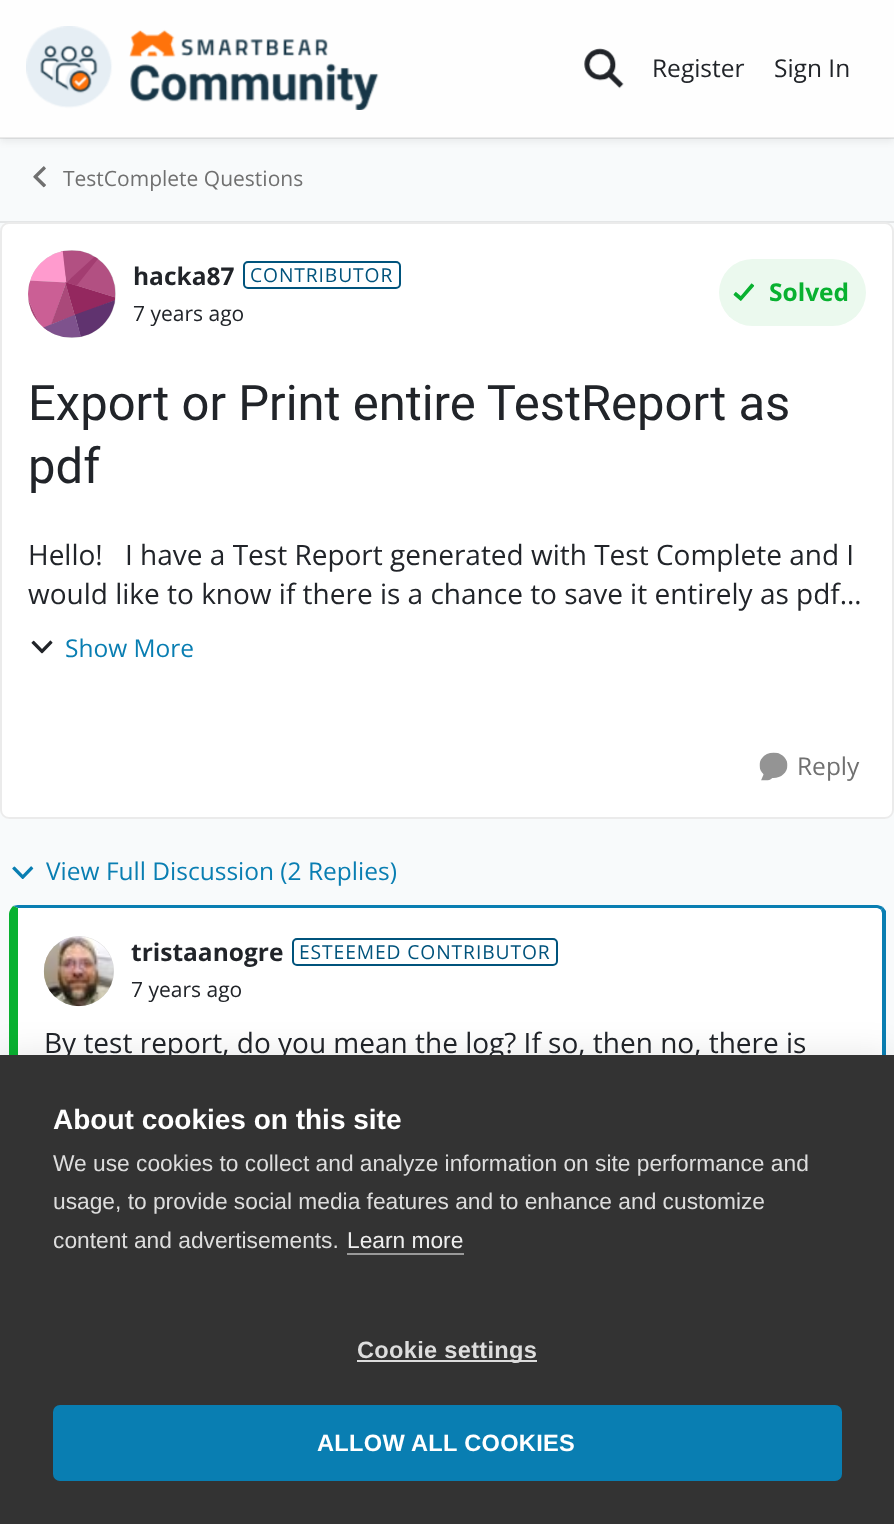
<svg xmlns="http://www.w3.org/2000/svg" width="894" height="1524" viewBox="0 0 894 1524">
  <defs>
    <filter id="blur1" x="-50%" y="-200%" width="200%" height="500%"><feGaussianBlur stdDeviation="3.5"/></filter>
    <filter id="blur2" x="-50%" y="-200%" width="200%" height="500%"><feGaussianBlur stdDeviation="17.5"/></filter>
  </defs>
  <rect width="100%" height="100%" fill="#f8fafb"/>
  <rect x="0" y="4" width="894" height="138" fill="#333333" fill-opacity="0.06" filter="url(#blur1)"/>
  <rect x="0" y="0" width="894" height="138" fill="#fefefe"/>
  <rect x="0" y="137" width="894" height="2" fill="#000000" fill-opacity="0.08"/>
  <image x="26" y="26" width="353" height="84" href="img1.png"/>
  <image x="584" y="48" width="40" height="41" href="img2.png"/>
  <text x="652" y="77" font-family="Open Sans" font-size="24.5" fill="#212429">Register</text>
  <text x="774" y="77" font-family="Open Sans" font-size="24.5" fill="#212429">Sign In</text>
  <rect x="0" y="221" width="894" height="2" fill="#e4e6e7"/>
  <image x="33" y="166" width="13" height="22" href="img3.png"/>
  <text x="63" y="186" font-family="Open Sans" font-size="21" fill="#707070">TestComplete Questions</text>
  <rect x="0" y="222" width="894" height="597" rx="9" fill="#ffffff"/>
  <rect x="1" y="223" width="892" height="595" rx="8" fill="none" stroke="#000000" stroke-opacity="0.08" stroke-width="2"/>
  <circle cx="72" cy="294" r="44" fill="#d9d9d9"/>
  <image x="28" y="250" width="88" height="88" href="img4.png"/>
  <text x="133" y="285" font-family="Open Sans" font-size="24.5" font-weight="bold" fill="#212429">hacka87</text>
  <rect x="244" y="262" width="156" height="26" rx="4" fill="none" stroke="#00537c" stroke-width="2"/>
  <text x="250" y="282" font-family="Open Sans" font-size="19.25" letter-spacing="0.9" fill="#00537c">CONTRIBUTOR</text>
  <text x="133" y="321" font-family="Open Sans" font-size="21" fill="#212429">7 years ago</text>
  <rect x="719" y="259" width="147" height="67" rx="33.5" fill="#ebf9ee"/>
  <image x="733" y="283" width="22" height="18" href="img5.png"/>
  <text x="769" y="301" font-family="Open Sans" font-size="24.5" font-weight="bold" fill="#08b130">Solved</text>
  <text x="28" y="420" font-family="Roboto" font-size="49" fill="#212429">Export or Print entire TestReport as</text>
  <text x="28" y="483" font-family="Roboto" font-size="49" fill="#212429">pdf</text>
  <text x="28" y="565" font-family="Open Sans" font-size="28" fill="#212429">Hello!</text>
  <text x="125" y="565" font-family="Open Sans" font-size="28" fill="#212429">I have a Test Report generated with Test Complete and I</text>
  <text x="28" y="604" font-family="Open Sans" font-size="28" fill="#212429">would like to know if there is a chance to save it entirely as pdf…</text>
  <image x="31" y="640" width="22" height="14" href="img6.png"/>
  <text x="65" y="657" font-family="Open Sans" font-size="24.5" fill="#097eb2">Show More</text>
  <image x="759" y="752" width="29" height="29" href="img7.png"/>
  <text x="797" y="775" font-family="Open Sans" font-size="24.5" fill="#707070">Reply</text>
  <image x="12" y="866" width="22" height="13" href="img8.png"/>
  <text x="46" y="880" font-family="Open Sans" font-size="24.5" fill="#097eb2">View Full Discussion (2 Replies)</text>
  <path d="M18 908H877C880 908 882 911 882 914V1274C882 1277 880 1279 877 1279H18Z" fill="#ffffff"/>
  <path d="M18 905C16 905 14 906 13 906L18 908H877C878 908 880 909 881 910L883 907C881 906 879 905 877 905Z" fill="#097eb2"/>
  <path d="M883 907C884 908 885 910 886 911V1277L883 1280L880 1278C882 1277 882 1275 882 1274V913L881 910Z" fill="#097eb2"/>
  <path d="M13 906C11 908 9 911 9 914V1274C9 1277 10 1280 13 1281L18 1279V908Z" fill="#08b130"/>
  <circle cx="79" cy="971" r="35" fill="#d9d9d9"/>
  <image x="43" y="936" width="71" height="71" href="img9.png"/>
  <text x="131" y="961" font-family="Open Sans" font-size="24.5" font-weight="bold" fill="#212429">tristaanogre</text>
  <rect x="293" y="939" width="264" height="26" rx="4" fill="none" stroke="#00537c" stroke-width="2"/>
  <text x="299" y="959" font-family="Open Sans" font-size="19.25" letter-spacing="0.9" fill="#00537c">ESTEEMED CONTRIBUTOR</text>
  <text x="131" y="997" font-family="Open Sans" font-size="21" fill="#212429">7 years ago</text>
  <text x="44" y="1053" font-family="Open Sans" font-size="28" fill="#212429">By test report, do you mean the log? If so, then no, there is</text>
  <rect x="0" y="1055" width="894" height="469" fill="#000000" fill-opacity="0.1" filter="url(#blur2)"/>
  <rect x="0" y="1055" width="894" height="469" fill="#333333"/>
  <text x="53" y="1129" font-family="Liberation Sans" font-size="28" font-weight="bold" fill="#ffffff">About cookies on this site</text>
  <text x="53" y="1171" font-family="Liberation Sans" font-size="22.75" fill="#dddddd">We use cookies to collect and analyze information on site performance and</text>
  <text x="53" y="1209" font-family="Liberation Sans" font-size="22.75" fill="#dddddd">usage, to provide social media features and to enhance and customize</text>
  <text x="53" y="1248" font-family="Liberation Sans" font-size="22.75" fill="#dddddd">content and advertisements.</text>
  <text x="347" y="1248" font-family="Liberation Sans" font-size="22.75" fill="#eeeeee">Learn more</text>
  <rect x="347" y="1253" width="117" height="2" fill="#999999"/>
  <rect x="357" y="1360" width="180" height="2" fill="#dddddd"/>
  <text x="357" y="1358" font-family="Liberation Sans" font-size="23.6" font-weight="bold" letter-spacing="0.3" fill="#dddddd">Cookie settings</text>
  <rect x="53" y="1405" width="789" height="76" rx="7" fill="#097eb2"/>
  <text x="317" y="1451" font-family="Liberation Sans" font-size="23.6" font-weight="bold" letter-spacing="0.3" fill="#ffffff">ALLOW ALL COOKIES</text>
</svg>
